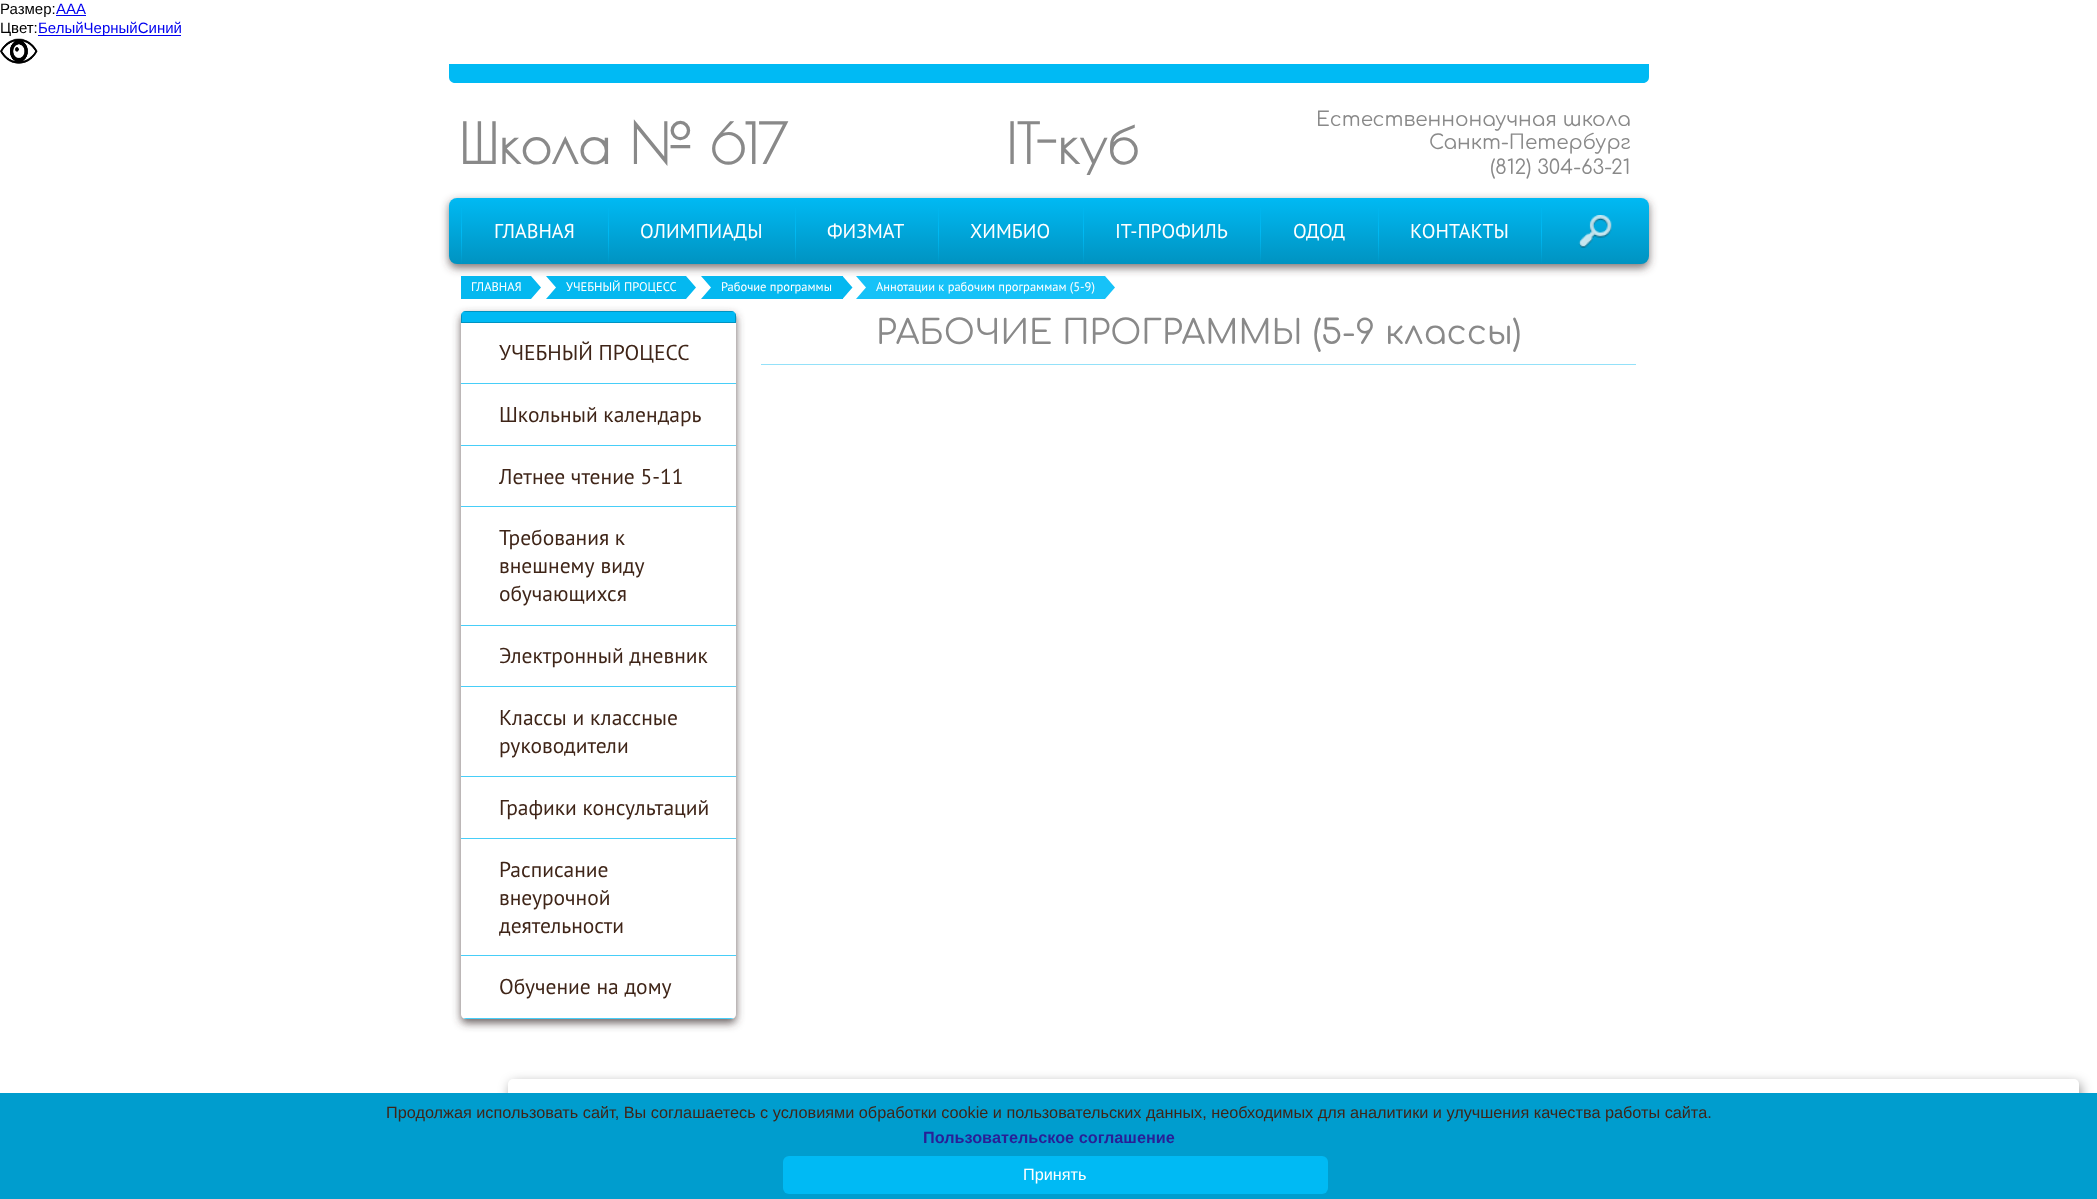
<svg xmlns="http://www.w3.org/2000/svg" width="2097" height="1199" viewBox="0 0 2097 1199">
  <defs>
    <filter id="blur1" x="-50%" y="-200%" width="200%" height="500%"><feGaussianBlur stdDeviation="4"/></filter>
    <linearGradient id="g1" gradientUnits="userSpaceOnUse" x1="1049" y1="197" x2="1049" y2="264"><stop offset="0" stop-color="#00baf4"/><stop offset="1" stop-color="#0093c1"/></linearGradient>
    <linearGradient id="g2" gradientUnits="userSpaceOnUse" x1="462" y1="198" x2="462" y2="264"><stop offset="0" stop-color="#00baf4" stop-opacity="0"/><stop offset="0.5" stop-color="#00baf4"/><stop offset="1" stop-color="#00baf4" stop-opacity="0"/></linearGradient>
    <linearGradient id="g3" gradientUnits="userSpaceOnUse" x1="608" y1="198" x2="608" y2="264"><stop offset="0" stop-color="#00baf4" stop-opacity="0"/><stop offset="0.5" stop-color="#00baf4"/><stop offset="1" stop-color="#00baf4" stop-opacity="0"/></linearGradient>
    <linearGradient id="g4" gradientUnits="userSpaceOnUse" x1="796" y1="198" x2="796" y2="264"><stop offset="0" stop-color="#00baf4" stop-opacity="0"/><stop offset="0.5" stop-color="#00baf4"/><stop offset="1" stop-color="#00baf4" stop-opacity="0"/></linearGradient>
    <linearGradient id="g5" gradientUnits="userSpaceOnUse" x1="938" y1="198" x2="938" y2="264"><stop offset="0" stop-color="#00baf4" stop-opacity="0"/><stop offset="0.5" stop-color="#00baf4"/><stop offset="1" stop-color="#00baf4" stop-opacity="0"/></linearGradient>
    <linearGradient id="g6" gradientUnits="userSpaceOnUse" x1="1083" y1="198" x2="1083" y2="264"><stop offset="0" stop-color="#00baf4" stop-opacity="0"/><stop offset="0.5" stop-color="#00baf4"/><stop offset="1" stop-color="#00baf4" stop-opacity="0"/></linearGradient>
    <linearGradient id="g7" gradientUnits="userSpaceOnUse" x1="1261" y1="198" x2="1261" y2="264"><stop offset="0" stop-color="#00baf4" stop-opacity="0"/><stop offset="0.5" stop-color="#00baf4"/><stop offset="1" stop-color="#00baf4" stop-opacity="0"/></linearGradient>
    <linearGradient id="g8" gradientUnits="userSpaceOnUse" x1="1378" y1="198" x2="1378" y2="264"><stop offset="0" stop-color="#00baf4" stop-opacity="0"/><stop offset="0.5" stop-color="#00baf4"/><stop offset="1" stop-color="#00baf4" stop-opacity="0"/></linearGradient>
    <linearGradient id="g9" gradientUnits="userSpaceOnUse" x1="1542" y1="198" x2="1542" y2="264"><stop offset="0" stop-color="#00baf4" stop-opacity="0"/><stop offset="0.5" stop-color="#00baf4"/><stop offset="1" stop-color="#00baf4" stop-opacity="0"/></linearGradient>
    <clipPath id="clip1"><rect x="461" y="311" width="275" height="708" rx="5"/></clipPath>
    <filter id="blur2" x="-50%" y="-200%" width="200%" height="500%"><feGaussianBlur stdDeviation="6"/></filter>
  </defs>
  <rect width="100%" height="100%" fill="#ffffff"/>
  <text x="0" y="14" font-family="Liberation Sans" font-size="15" fill="#000000">Размер:</text>
  <text x="56" y="14" font-family="Liberation Sans" font-size="15" fill="#0000ee">ААА</text>
  <rect x="56" y="15" width="30" height="1" fill="#0000ee"/>
  <text x="0" y="33" font-family="Liberation Sans" font-size="15" fill="#000000">Цвет:</text>
  <rect x="38" y="35" width="143" height="1" fill="#0000ee"/>
  <text x="38" y="33" font-family="Liberation Sans" font-size="15" fill="#0000ee">БелыйЧерныйСиний</text>
  <image x="0" y="38" width="38" height="26" href="img1.png"/>
  <path d="M449 64H1649V77C1649 80.5 1646.5 83 1643 83H455C451.5 83 449 80.5 449 77Z" fill="#00baf4"/>
  <text x="459" y="164" font-family="Poiret One" font-size="55" font-weight="bold" fill="#898989">Школа № 617</text>
  <text x="1006" y="164" font-family="Poiret One" font-size="55" font-weight="bold" fill="#898989">IT-куб</text>
  <text x="1316" y="126" font-family="Comfortaa" font-size="20" fill="#898989">Естественнонаучная школа</text>
  <text x="1429" y="149" font-family="Comfortaa" font-size="20" fill="#898989">Санкт-Петербург</text>
  <text x="1490" y="174" font-family="Comfortaa" font-size="20" fill="#898989">(812) 304-63-21</text>
  <rect x="449" y="201" width="1200" height="67" rx="8" fill="#483b3b" fill-opacity="0.69" filter="url(#blur1)"/>
  <rect x="449" y="198" width="1200" height="66" rx="8" fill="url(#g1)"/>
  <rect x="461" y="208" width="1" height="56" fill="url(#g2)"/>
  <text x="494" y="238" font-family="PT Sans" font-size="20" fill="#ffffff">ГЛАВНАЯ</text>
  <rect x="608" y="208" width="1" height="56" fill="url(#g3)"/>
  <text x="640" y="238" font-family="PT Sans" font-size="20" fill="#ffffff">ОЛИМПИАДЫ</text>
  <rect x="795" y="208" width="1" height="56" fill="url(#g4)"/>
  <text x="827" y="238" font-family="PT Sans" font-size="20" fill="#ffffff">ФИЗМАТ</text>
  <rect x="938" y="208" width="1" height="56" fill="url(#g5)"/>
  <text x="970" y="238" font-family="PT Sans" font-size="20" fill="#ffffff">ХИМБИО</text>
  <rect x="1083" y="208" width="1" height="56" fill="url(#g6)"/>
  <text x="1115" y="238" font-family="PT Sans" font-size="20" fill="#ffffff">IT-ПРОФИЛЬ</text>
  <rect x="1260" y="208" width="1" height="56" fill="url(#g7)"/>
  <text x="1293" y="238" font-family="PT Sans" font-size="20" fill="#ffffff">ОДОД</text>
  <rect x="1378" y="208" width="1" height="56" fill="url(#g8)"/>
  <text x="1410" y="238" font-family="PT Sans" font-size="20" fill="#ffffff">КОНТАКТЫ</text>
  <rect x="1541" y="208" width="1" height="56" fill="url(#g9)"/>
  <image x="1578" y="215" width="34" height="33" href="img2.png"/>
  <rect x="461" y="276" width="70" height="23" fill="#04b8f0"/>
  <text x="471" y="291" font-family="PT Sans" font-size="12.5" fill="#ffffff">ГЛАВНАЯ</text>
  <path d="M531 299V276L541 287.5ZM546 276H556V287.5Z" fill="#04b8f0"/>
  <path d="M556 299H546L556 287.5Z" fill="#04b8f0"/>
  <rect x="556" y="276" width="130" height="23" fill="#04b8f0"/>
  <text x="566" y="291" font-family="PT Sans" font-size="12.5" fill="#ffffff">УЧЕБНЫЙ ПРОЦЕСС</text>
  <path d="M686 299V276L696 287.5ZM701 276H711V287.5Z" fill="#04b8f0"/>
  <path d="M711 299H701L711 287.5Z" fill="#04b8f0"/>
  <rect x="711" y="276" width="132" height="23" fill="#04b8f0"/>
  <text x="721" y="291" font-family="PT Sans" font-size="12.5" fill="#ffffff">Рабочие программы</text>
  <path d="M842.5 299V276L852.5 287.5Z" fill="#04b8f0"/>
  <path d="M856 276H866V287.5Z" fill="#16c2f8"/>
  <path d="M866 299H856L866 287.5Z" fill="#16c2f8"/>
  <rect x="866" y="276" width="239" height="23" fill="#16c2f8"/>
  <text x="876" y="291" font-family="PT Sans" font-size="12.5" fill="#ffffff">Аннотации к рабочим программам (5-9)</text>
  <path d="M1105 299V276L1115 287.5Z" fill="#16c2f8"/>
  <rect x="761" y="364" width="875" height="1" fill="#94e1f9"/>
  <text x="876" y="344" font-family="Comfortaa" font-size="33.75" fill="#898989">РАБОЧИЕ ПРОГРАММЫ (5-9 классы)</text>
  <rect x="461" y="315" width="275" height="708" rx="5" fill="#483b3b" fill-opacity="0.8" filter="url(#blur1)"/>
  <path d="M466 311H731C734 311 736 313 736 316V323H461V316C461 313 463 311 466 311Z" fill="#00baf4"/>
  <path d="M461 316V323H736C736 320 737 316 735 313V322H462V313ZM466 311L463 312H734L731 311Z" fill="#0093c1" fill-rule="evenodd"/>
  <rect x="461" y="323" width="275" height="60" fill="#ffffff"/>
  <rect x="461" y="383" width="275" height="1" fill="#48cef8"/>
  <text x="499" y="360" font-family="PT Sans" font-size="21.5" fill="#3f2518">УЧЕБНЫЙ ПРОЦЕСС</text>
  <rect x="461" y="384" width="275" height="61" fill="#ffffff"/>
  <rect x="461" y="445" width="275" height="1" fill="#48cef8"/>
  <text x="499" y="422" font-family="PT Sans" font-size="21.5" fill="#3f2518">Школьный календарь</text>
  <rect x="461" y="446" width="275" height="179" fill="#ffffff"/>
  <rect x="461" y="506" width="275" height="1" fill="#48cef8"/>
  <text x="499" y="484" font-family="PT Sans" font-size="21.5" fill="#3f2518">Летнее чтение 5-11</text>
  <rect x="461" y="625" width="275" height="1" fill="#48cef8"/>
  <text x="499" y="545" font-family="PT Sans" font-size="21.5" fill="#3f2518">Требования к</text>
  <text x="499" y="573" word-spacing="1" font-family="PT Sans" font-size="21.5" fill="#3f2518">внешнему виду</text>
  <text x="499" y="601" font-family="PT Sans" font-size="21.5" fill="#3f2518">обучающихся</text>
  <rect x="461" y="626" width="275" height="212" fill="#ffffff"/>
  <rect x="461" y="686" width="275" height="1" fill="#48cef8"/>
  <text x="499" y="663" font-family="PT Sans" font-size="21.5" fill="#3f2518">Электронный дневник</text>
  <rect x="461" y="776" width="275" height="1" fill="#48cef8"/>
  <text x="499" y="725" font-family="PT Sans" font-size="21.5" fill="#3f2518">Классы и классные</text>
  <text x="499" y="753" font-family="PT Sans" font-size="21.5" fill="#3f2518">руководители</text>
  <rect x="461" y="838" width="275" height="1" fill="#48cef8"/>
  <text x="499" y="815" font-family="PT Sans" font-size="21.5" fill="#3f2518">Графики консультаций</text>
  <rect x="461" y="839" width="275" height="116" fill="#ffffff"/>
  <rect x="461" y="955" width="275" height="1" fill="#48cef8"/>
  <text x="499" y="877" font-family="PT Sans" font-size="21.5" fill="#3f2518">Расписание</text>
  <text x="499" y="905" font-family="PT Sans" font-size="21.5" fill="#3f2518">внеурочной</text>
  <text x="499" y="933" font-family="PT Sans" font-size="21.5" fill="#3f2518">деятельности</text>
  <path d="M461 956H736V1014C736 1017 734 1019 731 1019H466C463 1019 461 1017 461 1014Z" fill="#ffffff"/>
  <g clip-path="url(#clip1)">
    <rect x="461" y="1018" width="275" height="1" fill="#48cef8"/>
  </g>
  <text x="499" y="994" font-family="PT Sans" font-size="21.5" fill="#3f2518">Обучение на дому</text>
  <rect x="510" y="1083" width="1571" height="102" rx="5" fill="#000000" fill-opacity="0.4" filter="url(#blur2)"/>
  <rect x="508" y="1079" width="1571" height="102" rx="5" fill="#ffffff"/>
  <rect x="0" y="1093" width="2097" height="106" fill="#009dce"/>
  <text x="386" y="1118" font-family="Liberation Sans" font-size="16.25" fill="#3f2518">Продолжая использовать сайт, Вы соглашаетесь с условиями обработки cookie и пользовательских данных, необходимых для аналитики и улучшения качества работы сайта.</text>
  <text x="923" y="1143" font-family="Liberation Sans" font-size="16.25" font-weight="bold" fill="#291f96">Пользовательское соглашение</text>
  <rect x="783" y="1156" width="545" height="38" rx="6" fill="#00baf4"/>
  <text x="1023" y="1180" font-family="Liberation Sans" font-size="16.25" fill="#ffffff">Принять</text>
</svg>
